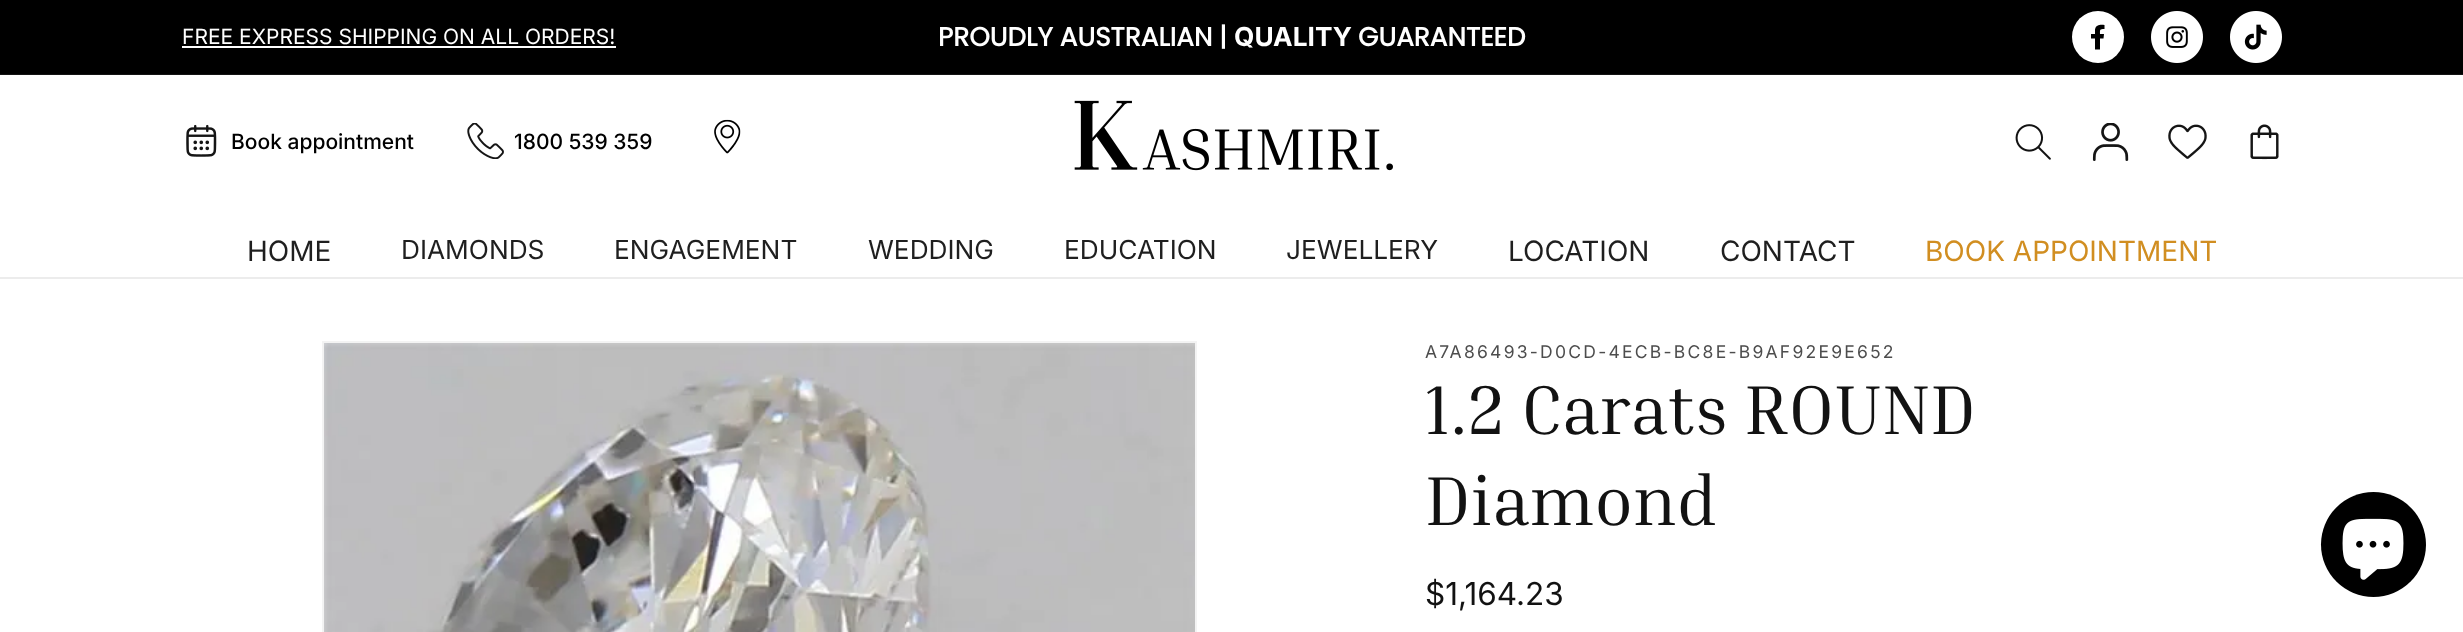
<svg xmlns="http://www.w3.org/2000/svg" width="2463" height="632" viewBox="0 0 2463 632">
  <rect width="100%" height="100%" fill="#ffffff"/>
  <rect x="0" y="0" width="2463" height="74" fill="#000000"/>
  <rect x="0" y="74" width="2463" height="1" fill="#141414"/>
  <text x="182" y="44" font-family="Inter" font-size="21" fill="#ffffff">FREE EXPRESS SHIPPING ON ALL ORDERS!</text>
  <rect x="182" y="46" width="434" height="2" fill="#ffffff"/>
  <text x="938" y="46" font-family="Poppins" font-size="26.25" font-weight="bold" fill="#ffffff">PROUDLY AUSTRALIAN |</text>
  <text x="1234" y="46" font-family="Inter" font-size="26.25" font-weight="bold" fill="#ffffff">QUALITY</text>
  <text x="1358" y="46" font-family="Poppins" font-size="26.25" font-weight="bold" fill="#ffffff">GUARANTEED</text>
  <circle cx="2098" cy="37" r="26" fill="#ffffff"/>
  <path d="M2103.5 38.5H2100V49.5H2095V38.5H2091V34H2095V29.5C2096 24.5 2100.5 24.5 2104.5 25V29C2099.5 29 2100 29.5 2100 34H2104Z" fill="#000000"/>
  <image x="2151" y="11" width="52" height="52" href="img1.png"/>
  <image x="2230" y="11" width="52" height="52" href="img2.png"/>
  <rect x="0" y="277" width="2463" height="2" fill="#ececec"/>
  <image x="186" y="124" width="31" height="33" href="img3.png"/>
  <text x="231" y="149" font-family="Inter" font-size="21" font-weight="500" fill="#000000">Book appointment</text>
  <image x="467" y="123" width="37" height="36" href="img4.png"/>
  <text x="514" y="149" font-family="Inter" font-size="21" font-weight="500" fill="#000000">1800 539 359</text>
  <image x="714" y="119" width="27" height="35" href="img5.png"/>
  <image x="1074" y="100" width="319" height="71" href="img6.png"/>
  <image x="2015" y="124" width="36" height="36" href="img7.png"/>
  <image x="2092" y="123" width="37" height="38" href="img8.png"/>
  <image x="2168" y="124" width="39" height="35" href="img9.png"/>
  <image x="2250" y="124" width="29" height="36" href="img10.png"/>
  <text x="247" y="261" font-family="Inter" font-size="28" fill="#1f1f1f">HOME</text>
  <text x="401" y="259" font-family="Inter" font-size="26.25" fill="#1f1f1f">DIAMONDS</text>
  <text x="614" y="259" font-family="Inter" font-size="26.25" fill="#1f1f1f">ENGAGEMENT</text>
  <text x="868" y="259" font-family="Inter" font-size="26.25" fill="#1f1f1f">WEDDING</text>
  <text x="1064" y="259" font-family="Inter" font-size="26.25" fill="#1f1f1f">EDUCATION</text>
  <text x="1286" y="259" font-family="Inter" font-size="26.25" fill="#1f1f1f">JEWELLERY</text>
  <text x="1508" y="261" font-family="Inter" font-size="28" fill="#1f1f1f">LOCATION</text>
  <text x="1720" y="261" font-family="Inter" font-size="28" fill="#1f1f1f">CONTACT</text>
  <text x="1925" y="261" font-family="Inter" font-size="28" fill="#d18e21">BOOK APPOINTMENT</text>
  <rect x="323" y="342" width="873" height="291" fill="none" stroke="#f3f3f3" stroke-width="2"/>
  <image x="324" y="343" width="871" height="289" href="img11.png"/>
  <text x="1425" y="358" font-family="Inter" font-size="17.5" letter-spacing="2.25" fill="#4d4d4d">A7A86493-D0CD-4ECB-BC8E-B9AF92E9E652</text>
  <text x="1425" y="434" font-family="Inria Serif" font-size="70" fill="#121212">1.2 Carats ROUND</text>
  <text x="1425" y="525" font-family="Inria Serif" font-size="70" fill="#121212">Diamond</text>
  <text x="1425" y="605" font-family="Inter" font-size="31.5" fill="#121212">$1,164.23</text>
  <circle cx="2373.5" cy="544.5" r="52.5" fill="#000000"/>
  <image x="2342" y="518" width="62" height="62" href="img12.png"/>
</svg>
